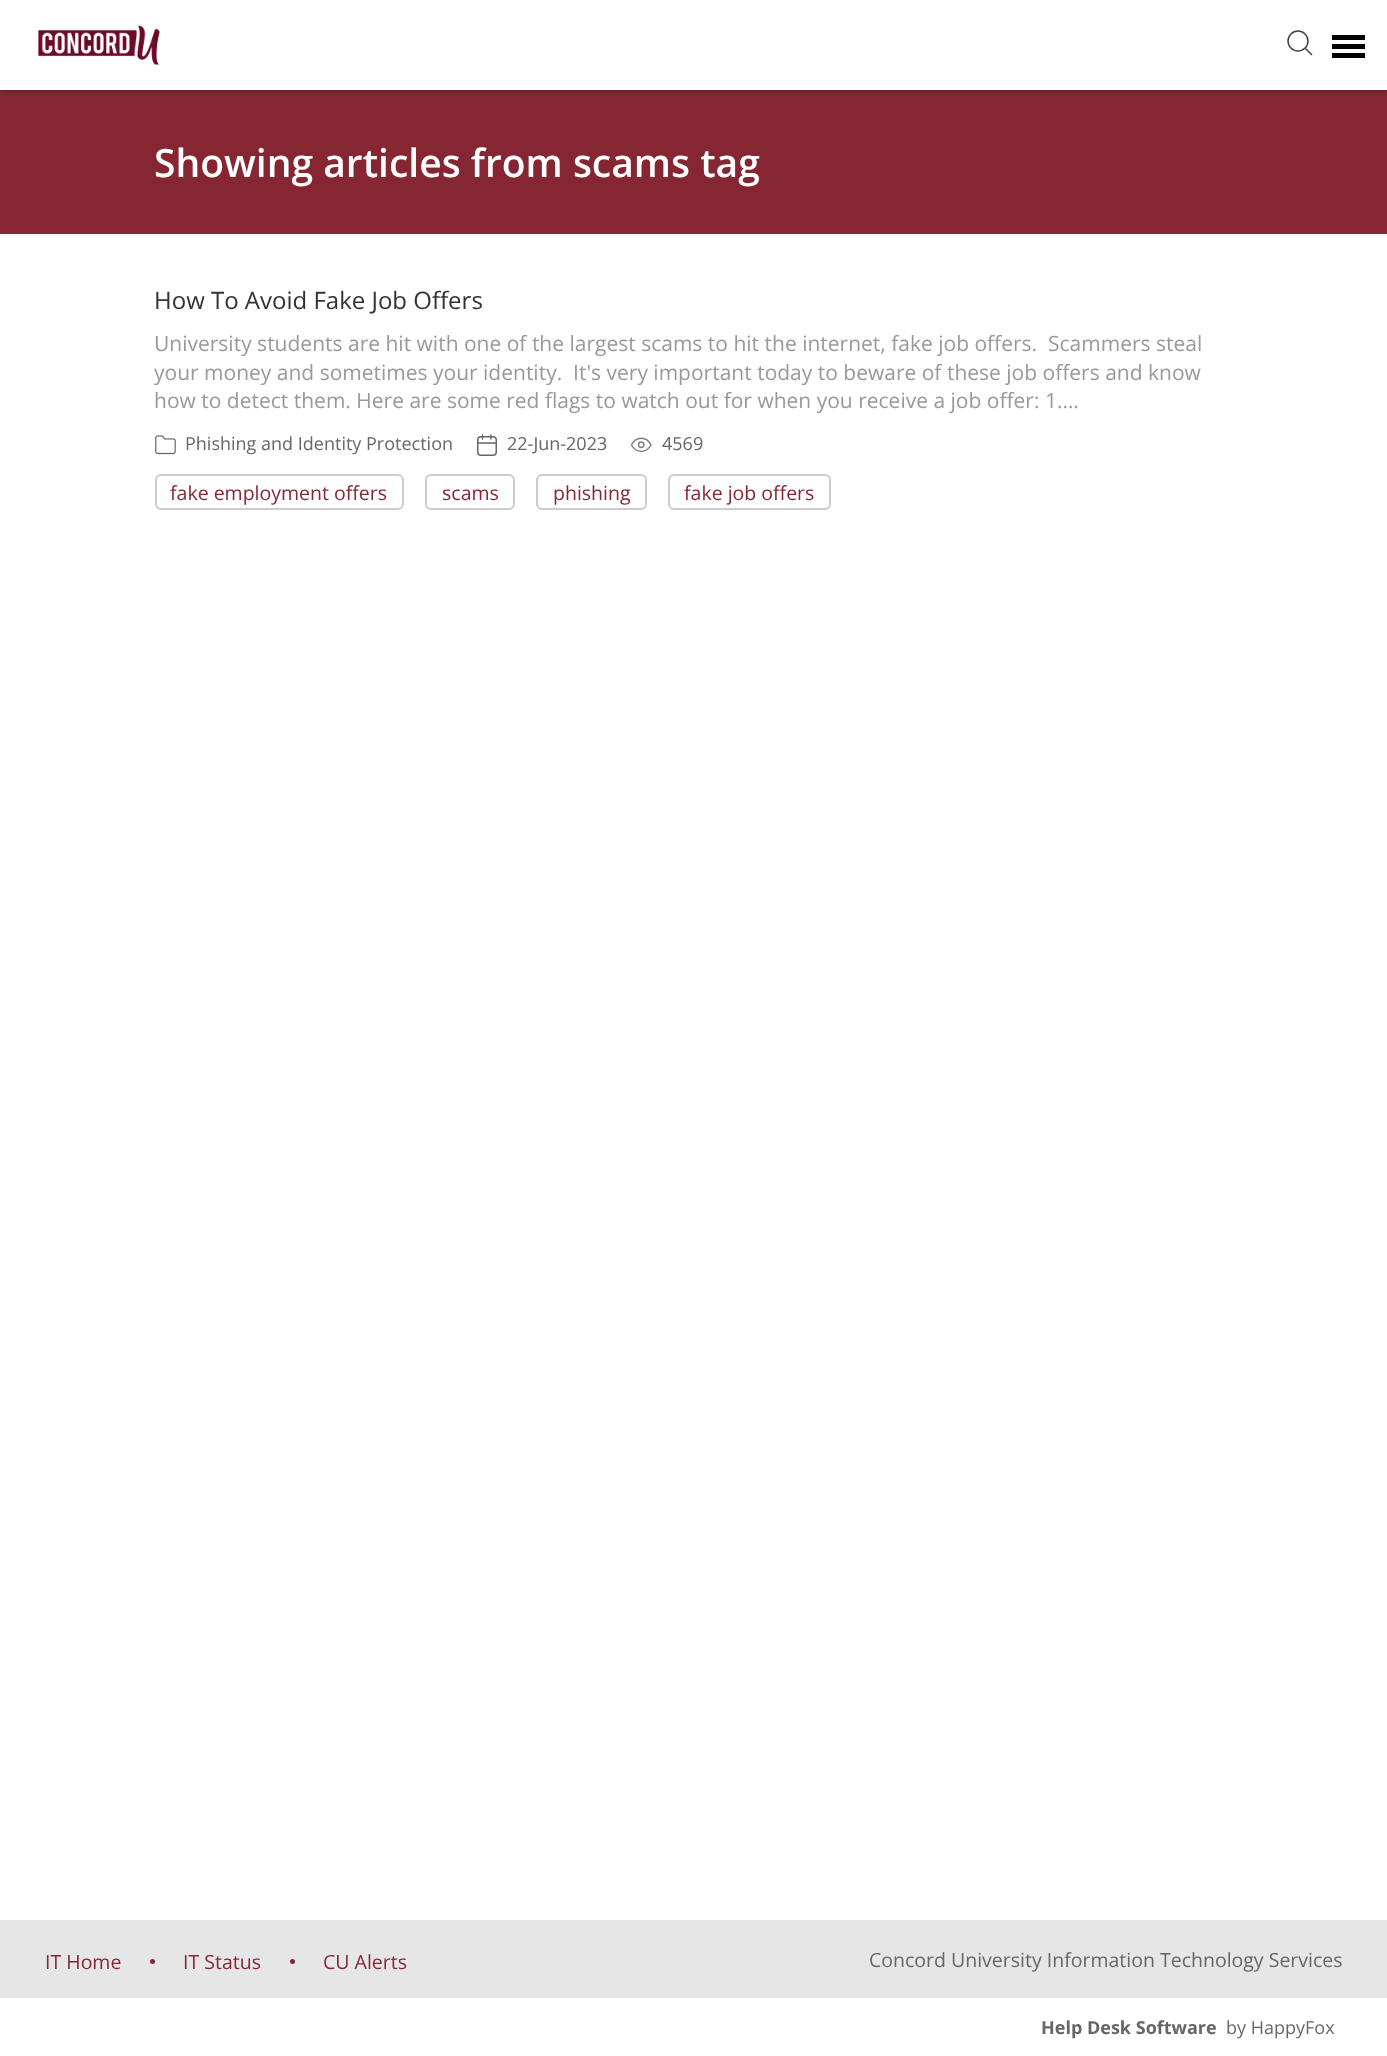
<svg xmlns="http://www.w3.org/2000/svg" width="1387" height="2056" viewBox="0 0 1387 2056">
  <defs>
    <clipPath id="clip1"><rect x="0" y="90" width="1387" height="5"/></clipPath>
    <filter id="blur1" x="-50%" y="-200%" width="200%" height="500%"><feGaussianBlur stdDeviation="2"/></filter>
  </defs>
  <rect width="100%" height="100%" fill="#ffffff"/>
  <rect x="0" y="90" width="1387" height="144" fill="#862633"/>
  <g clip-path="url(#clip1)">
    <rect x="0" y="2" width="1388" height="90" fill="#000000" fill-opacity="0.2" filter="url(#blur1)"/>
  </g>
  <image x="38" y="25" width="122" height="40" href="img1.png"/>
  <circle cx="1298" cy="41" r="10" fill="none" stroke="#424242" stroke-width="1.5"/>
  <path d="M1306 49L1311.5 54.5" fill="none" stroke="#424242" stroke-width="1.5" stroke-linecap="square"/>
  <rect x="1332" y="35" width="33" height="5" fill="#000000"/>
  <rect x="1332" y="44" width="33" height="5" fill="#000000"/>
  <rect x="1332" y="53" width="33" height="5" fill="#000000"/>
  <text x="154" y="177" font-family="Open Sans" font-size="39" font-weight="600" fill="#ffffff">Showing articles from scams tag</text>
  <text x="154" y="309" font-family="Open Sans" font-size="24" fill="#333333">How To Avoid Fake Job Offers</text>
  <text x="154" y="351" font-family="Open Sans" font-size="21" fill="#999999" xml:space="preserve">University students are hit with one of the largest scams to hit the internet, fake job offers.  Scammers steal</text>
  <text x="154" y="380" font-family="Open Sans" font-size="21" fill="#999999" xml:space="preserve">your money and sometimes your identity.  It's very important today to beware of these job offers and know</text>
  <text x="154" y="408" font-family="Open Sans" font-size="21" fill="#999999">how to detect them. Here are some red flags to watch out for when you receive a job offer: 1.…</text>
  <image x="155" y="435" width="21" height="20" href="img2.png"/>
  <text x="185" y="450" font-family="Open Sans" font-size="18" fill="#666666">Phishing and Identity Protection</text>
  <rect x="477.75" y="436.75" width="18.5" height="18.5" rx="3.25" fill="none" stroke="#666666" stroke-width="1.5"/>
  <path d="M491 435V439M482.5 435V439M477.5 443H496" fill="none" stroke="#666666" stroke-width="1.4" stroke-linecap="round" stroke-linejoin="round"/>
  <text x="507" y="450" font-family="Open Sans" font-size="18" fill="#666666">22-Jun-2023</text>
  <path d="M631.5 445C636 436 646.5 436 651 445C646.5 453.5 636 453.5 631.5 445Z" fill="none" stroke="#808080" stroke-width="1.5" stroke-linecap="round" stroke-linejoin="round"/>
  <circle cx="641.2" cy="444.8" r="2.7" fill="none" stroke="#808080" stroke-width="1.5"/>
  <text x="662" y="450" font-family="Open Sans" font-size="18" fill="#666666">4569</text>
  <rect x="156" y="475" width="247" height="34" rx="5" fill="none" stroke="#cccccc" stroke-width="2"/>
  <text x="170" y="500" font-family="Open Sans" font-size="19.5" fill="#862633">fake employment offers</text>
  <rect x="426" y="475" width="88" height="34" rx="5" fill="none" stroke="#cccccc" stroke-width="2"/>
  <text x="442" y="500" font-family="Open Sans" font-size="19.5" fill="#862633">scams</text>
  <rect x="537" y="475" width="109" height="34" rx="5" fill="none" stroke="#cccccc" stroke-width="2"/>
  <text x="553" y="500" font-family="Open Sans" font-size="19.5" fill="#862633">phishing</text>
  <rect x="669" y="475" width="161" height="34" rx="5" fill="none" stroke="#cccccc" stroke-width="2"/>
  <text x="684" y="500" font-family="Open Sans" font-size="19.5" fill="#862633">fake job offers</text>
  <rect x="0" y="1920" width="1387" height="78" fill="#e6e6e6"/>
  <text x="45" y="1969" font-family="Open Sans" font-size="19.5" fill="#862633">IT Home</text>
  <circle cx="152.5" cy="1961.5" r="2.5" fill="#862633"/>
  <text x="183" y="1969" font-family="Open Sans" font-size="19.5" fill="#862633">IT Status</text>
  <circle cx="292.5" cy="1961.5" r="2.5" fill="#862633"/>
  <text x="323" y="1969" font-family="Open Sans" font-size="19.5" fill="#862633">CU Alerts</text>
  <text x="869" y="1967" font-family="Open Sans" font-size="19.5" fill="#666666">Concord University Information Technology Services</text>
  <text x="1041" y="2034" font-family="Open Sans" font-size="18" font-weight="bold" fill="#666666">Help Desk Software</text>
  <text x="1226" y="2034" font-family="Open Sans" font-size="18" fill="#666666">by HappyFox</text>
</svg>
